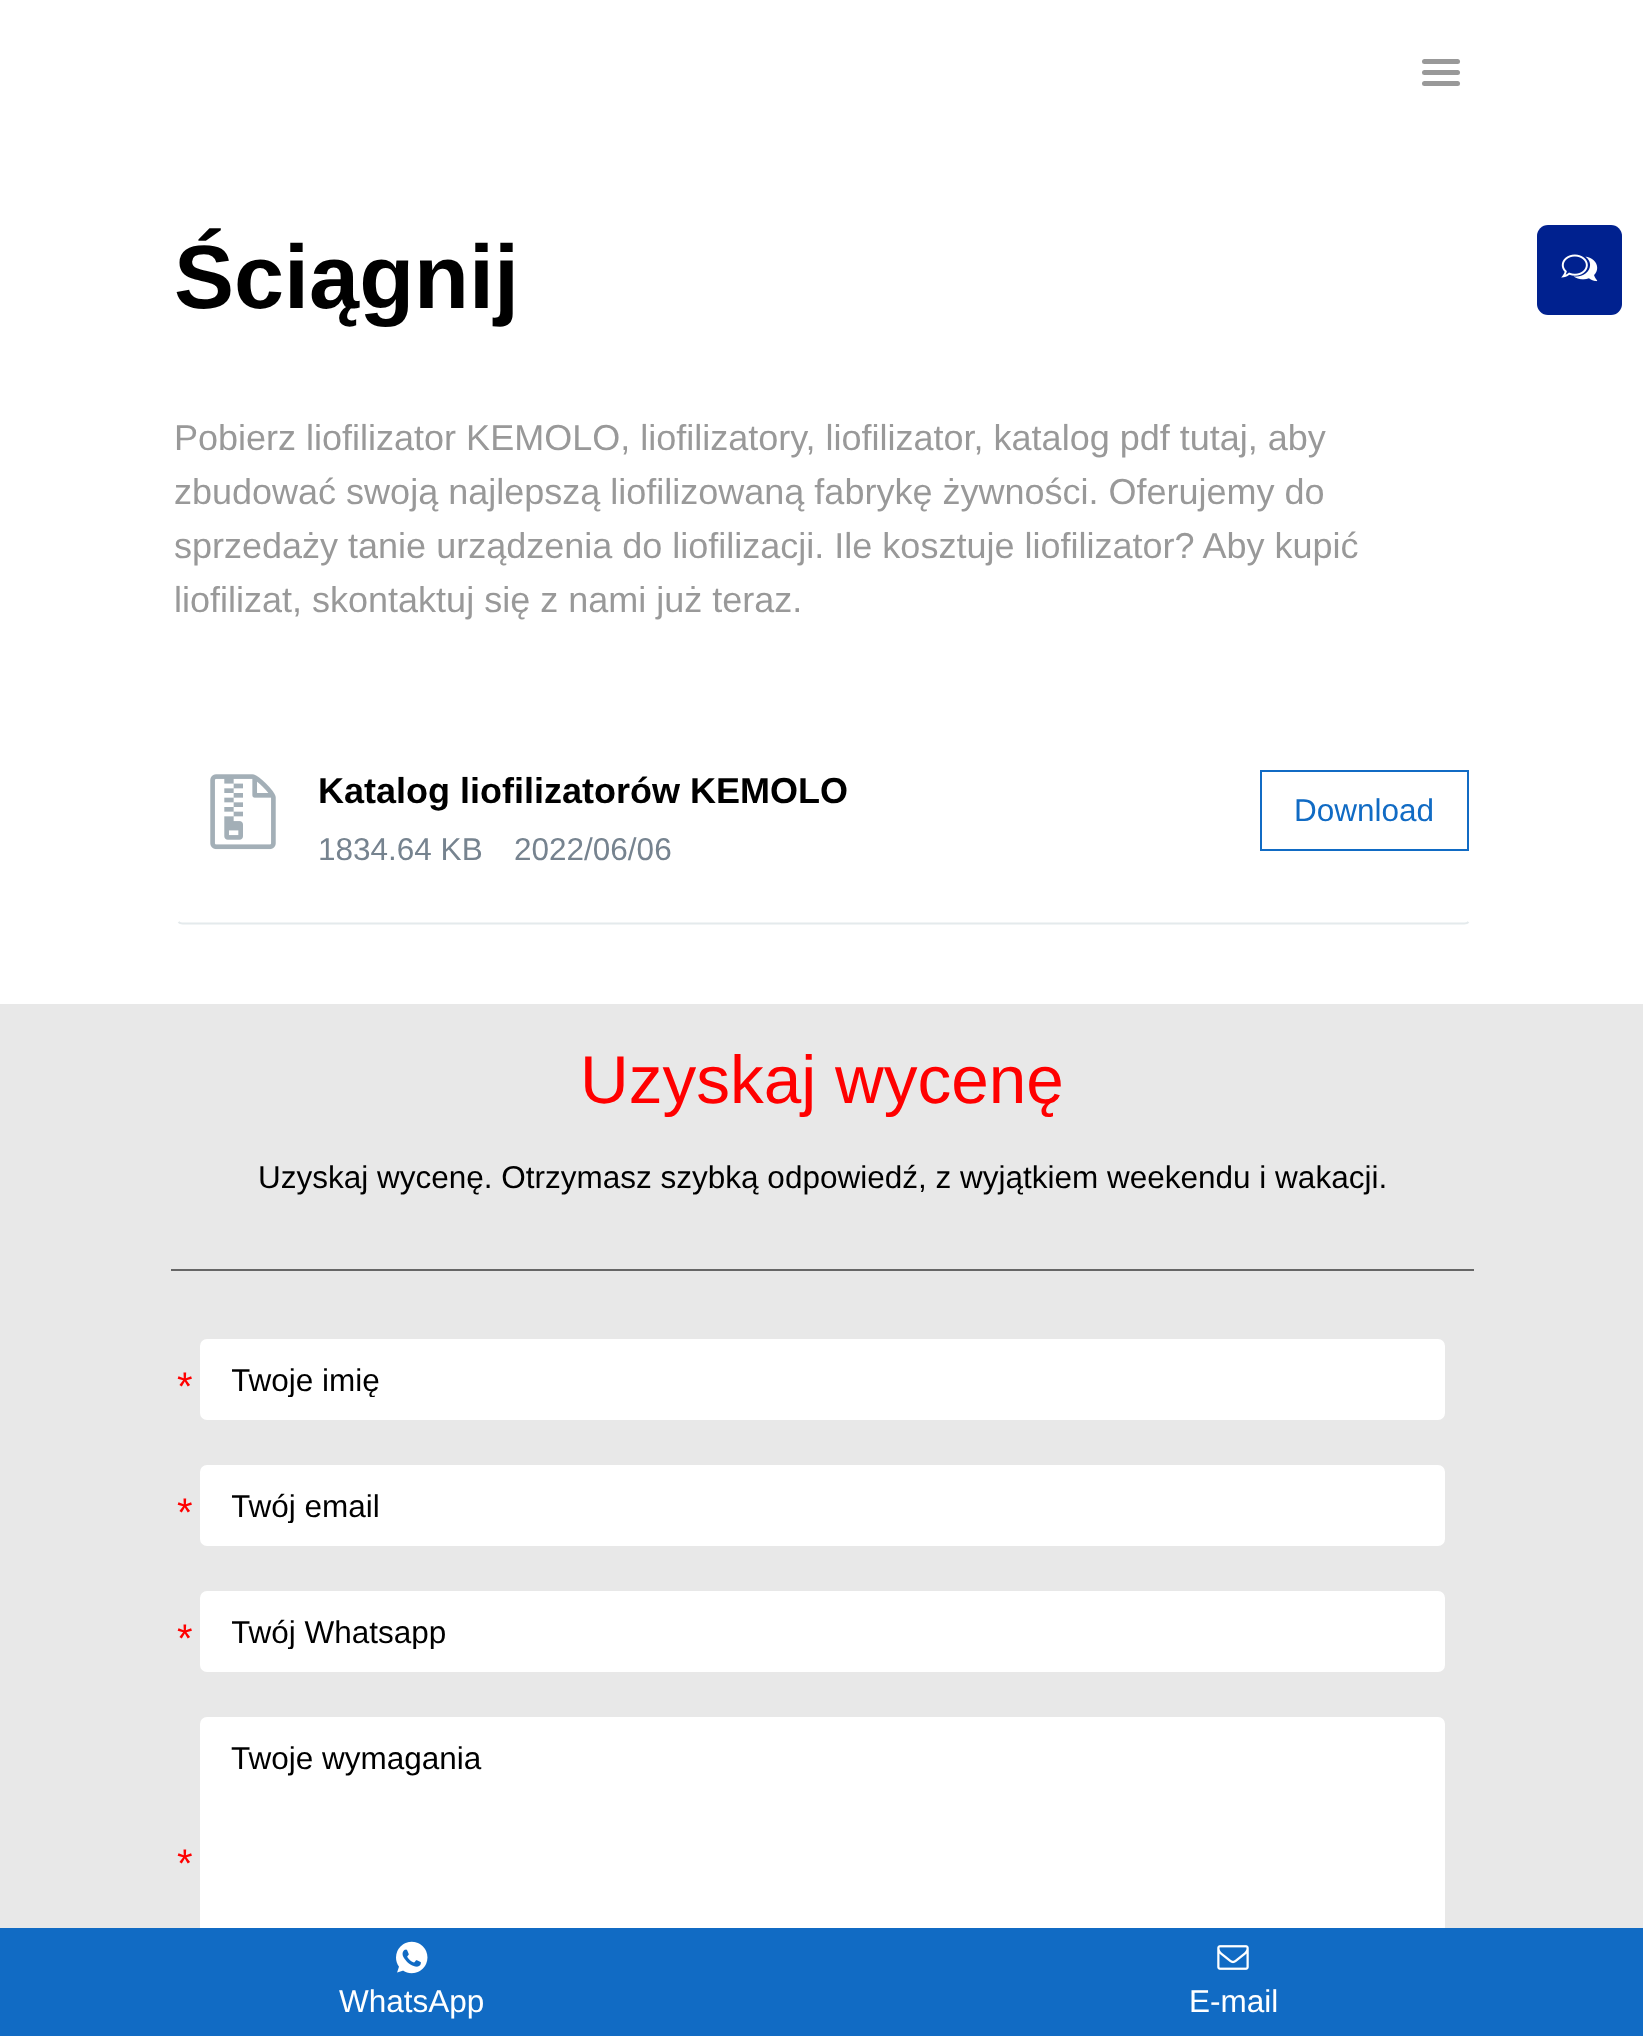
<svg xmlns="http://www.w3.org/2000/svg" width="1643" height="2036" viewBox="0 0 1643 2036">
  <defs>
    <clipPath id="clip1"><rect x="232" y="1361" width="1181" height="36"/></clipPath>
    <clipPath id="clip2"><rect x="232" y="1487" width="1181" height="36"/></clipPath>
    <clipPath id="clip3"><rect x="232" y="1613" width="1181" height="36"/></clipPath>
  </defs>
  <rect width="100%" height="100%" fill="#ffffff"/>
  <rect x="1422" y="59" width="38" height="5" rx="2.5" fill="#999999"/>
  <rect x="1422" y="70" width="38" height="5" rx="2.5" fill="#999999"/>
  <rect x="1422" y="81" width="38" height="5" rx="2.5" fill="#999999"/>
  <text x="174" y="308" font-family="Liberation Sans" font-size="90" font-weight="bold" fill="#000000">Ściągnij</text>
  <text x="174" y="450" font-family="Liberation Sans" font-size="36" fill="#999999">Pobierz liofilizator KEMOLO, liofilizatory, liofilizator, katalog pdf tutaj, aby</text>
  <text x="174" y="504" font-family="Liberation Sans" font-size="36" fill="#999999">zbudować swoją najlepszą liofilizowaną fabrykę żywności. Oferujemy do</text>
  <text x="174" y="558" font-family="Liberation Sans" font-size="36" fill="#999999">sprzedaży tanie urządzenia do liofilizacji. Ile kosztuje liofilizator? Aby kupić</text>
  <text x="174" y="612" font-family="Liberation Sans" font-size="36" fill="#999999">liofilizat, skontaktuj się z nami już teraz.</text>
  <path d="M1468.5 922C1467.5 923 1466 923.5 1464.5 923.5H182.5C181 923.5 179.5 923 178.5 922" fill="none" stroke="#e4eaec" stroke-width="2.2"/>
  <image x="210" y="774" width="66" height="76" href="img1.png"/>
  <text x="318" y="803" font-family="Liberation Sans" font-size="36" font-weight="bold" fill="#000000">Katalog liofilizatorów KEMOLO</text>
  <rect x="1261" y="771" width="207" height="79" fill="none" stroke="#116bc4" stroke-width="2"/>
  <text x="1294" y="821" font-family="Liberation Sans" font-size="31.5" fill="#116bc4">Download</text>
  <text x="318" y="860" font-family="Liberation Sans" font-size="31.5" fill="#76838f">1834.64 KB</text>
  <text x="514" y="860" font-family="Liberation Sans" font-size="31.5" fill="#76838f">2022/06/06</text>
  <rect x="1537" y="225" width="85" height="90" rx="11" fill="#00218f"/>
  <image x="1561" y="254" width="37" height="28" href="img2.png"/>
  <rect x="0" y="1004" width="1643" height="924" fill="#e8e8e8"/>
  <rect x="171" y="1269" width="1303" height="2" fill="#666666"/>
  <text x="580" y="1103" font-family="Liberation Sans" font-size="67.5" fill="#ff0000">Uzyskaj wycenę</text>
  <text x="258" y="1188" font-family="Liberation Sans" font-size="31.5" fill="#000000">Uzyskaj wycenę. Otrzymasz szybką odpowiedź, z wyjątkiem weekendu i wakacji.</text>
  <text x="177" y="1400" font-family="Liberation Sans" font-size="40" fill="#ff0000">*</text>
  <rect x="201" y="1340" width="1243" height="79" rx="6" fill="#ffffff" stroke="#ffffff" stroke-width="2"/>
  <g clip-path="url(#clip1)">
    <text x="231" y="1391" font-family="Liberation Sans" font-size="31.5" fill="#000000">Twoje imię</text>
  </g>
  <text x="177" y="1526" font-family="Liberation Sans" font-size="40" fill="#ff0000">*</text>
  <rect x="201" y="1466" width="1243" height="79" rx="6" fill="#ffffff" stroke="#ffffff" stroke-width="2"/>
  <g clip-path="url(#clip2)">
    <text x="231" y="1517" font-family="Liberation Sans" font-size="31.5" fill="#000000">Twój email</text>
  </g>
  <text x="177" y="1652" font-family="Liberation Sans" font-size="40" fill="#ff0000">*</text>
  <rect x="201" y="1592" width="1243" height="79" rx="6" fill="#ffffff" stroke="#ffffff" stroke-width="2"/>
  <g clip-path="url(#clip3)">
    <text x="231" y="1643" font-family="Liberation Sans" font-size="31.5" fill="#000000">Twój Whatsapp</text>
  </g>
  <rect x="201" y="1718" width="1243" height="277" rx="6" fill="#ffffff" stroke="#ffffff" stroke-width="2"/>
  <text x="231" y="1769" font-family="Liberation Sans" font-size="31.5" fill="#000000">Twoje wymagania</text>
  <text x="177" y="1877" font-family="Liberation Sans" font-size="40" fill="#ff0000">*</text>
  <rect x="0" y="1928" width="1643" height="108" fill="#116bc4"/>
  <image x="396" y="1941" width="32" height="33" href="img3.png"/>
  <text x="339" y="2012" font-family="Liberation Sans" font-size="31.5" fill="#ffffff">WhatsApp</text>
  <image x="1217" y="1945" width="32" height="25" href="img4.png"/>
  <text x="1189" y="2012" font-family="Liberation Sans" font-size="31.5" fill="#ffffff">E-mail</text>
</svg>
